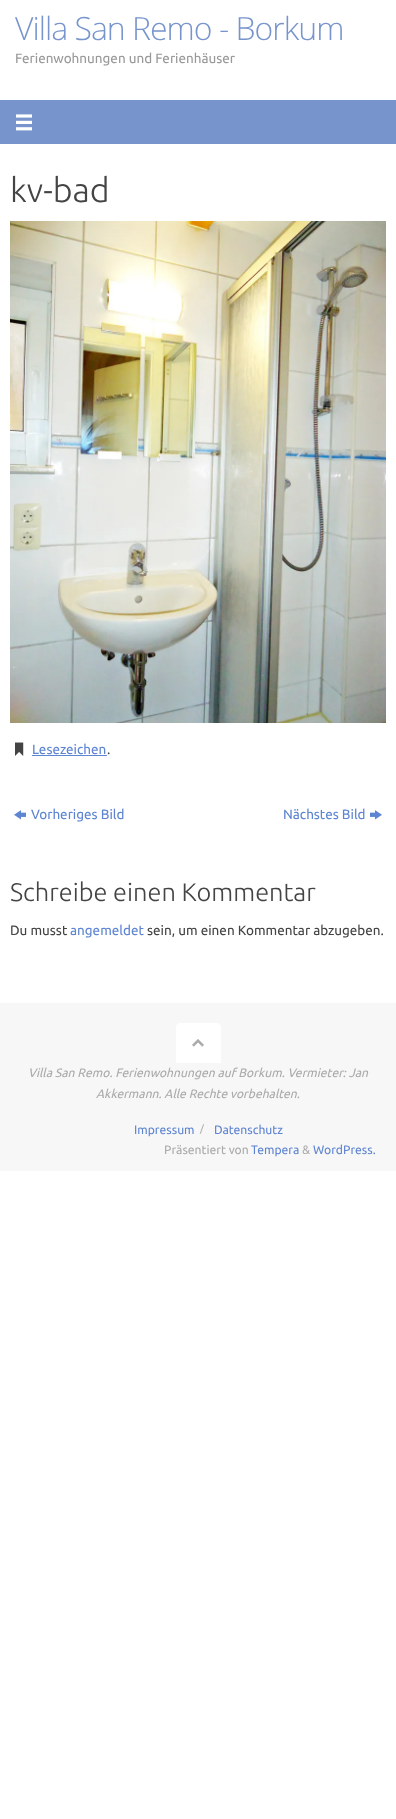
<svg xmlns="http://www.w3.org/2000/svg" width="396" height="1819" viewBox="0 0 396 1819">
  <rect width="100%" height="100%" fill="#ffffff"/>
  <text x="15" y="40" font-family="Open Sans" font-size="32" font-weight="300" letter-spacing="-1" fill="#7794cc">Villa San Remo - Borkum</text>
  <text x="15" y="63" font-family="Ubuntu" font-size="13.5" fill="#999999">Ferienwohnungen und Ferienhäuser</text>
  <rect x="0" y="100" width="396" height="44" fill="#7794cc"/>
  <image x="16" y="114" width="16" height="17" href="img1.png"/>
  <text x="10" y="202" font-family="Ubuntu" font-size="34" font-weight="300" fill="#444444">kv-bad</text>
  <image x="10" y="221" width="376" height="502" href="img2.png"/>
  <image x="15" y="742" width="9" height="14" href="img3.png"/>
  <text x="32" y="754" font-family="Ubuntu" font-size="13.5" fill="#5e85d1">Lesezeichen</text>
  <rect x="32" y="755" width="75" height="1" fill="#5e85d1"/>
  <text x="107" y="754" font-family="Ubuntu" font-size="13.5" fill="#444444">.</text>
  <image x="14" y="810" width="12" height="10" href="img4.png"/>
  <text x="31" y="819" font-family="Ubuntu" font-size="13.5" fill="#5e85d1">Vorheriges Bild</text>
  <text x="283" y="819" font-family="Ubuntu" font-size="13.5" fill="#5e85d1">Nächstes Bild</text>
  <image x="370" y="810" width="12" height="10" href="img5.png"/>
  <text x="10" y="901" font-family="Ubuntu" font-size="25.4" font-weight="300" fill="#444444">Schreibe einen Kommentar</text>
  <text x="10" y="935" font-family="Ubuntu" font-size="13.5" fill="#444444">Du musst</text>
  <text x="70" y="935" font-family="Ubuntu" font-size="13.5" fill="#5e85d1">angemeldet</text>
  <text x="147" y="935" font-family="Ubuntu" font-size="13.5" fill="#444444">sein, um einen Kommentar abzugeben.</text>
  <rect x="0" y="1003" width="396" height="168" fill="#f7f7f7"/>
  <path d="M180 1023H217C219 1023 221 1025 221 1027V1063H176V1027C176 1025 178 1023 180 1023Z" fill="#ffffff"/>
  <image x="192" y="1039" width="12" height="8" href="img6.png"/>
  <text x="28" y="1077" font-family="Ubuntu" font-size="12.15" font-style="italic" fill="#aaaaaa">Villa San Remo. Ferienwohnungen auf Borkum. Vermieter: Jan</text>
  <text x="96" y="1098" font-family="Ubuntu" font-size="12.15" font-style="italic" fill="#aaaaaa">Akkermann. Alle Rechte vorbehalten.</text>
  <text x="134" y="1134" font-family="Ubuntu" font-size="12.15" fill="#5e85d1">Impressum</text>
  <text x="200" y="1132" font-family="Ubuntu" font-size="10" fill="#aaaaaa">/</text>
  <text x="214" y="1134" font-family="Ubuntu" font-size="12.15" fill="#5e85d1">Datenschutz</text>
  <text x="164" y="1154" font-family="Ubuntu" font-size="12.15" fill="#aaaaaa">Präsentiert von</text>
  <text x="251" y="1154" font-family="Ubuntu" font-size="12.15" fill="#5e85d1">Tempera</text>
  <text x="302" y="1154" font-family="Ubuntu" font-size="12.15" fill="#aaaaaa">&amp;</text>
  <text x="313" y="1154" font-family="Ubuntu" font-size="12.15" fill="#5e85d1">WordPress.</text>
</svg>
